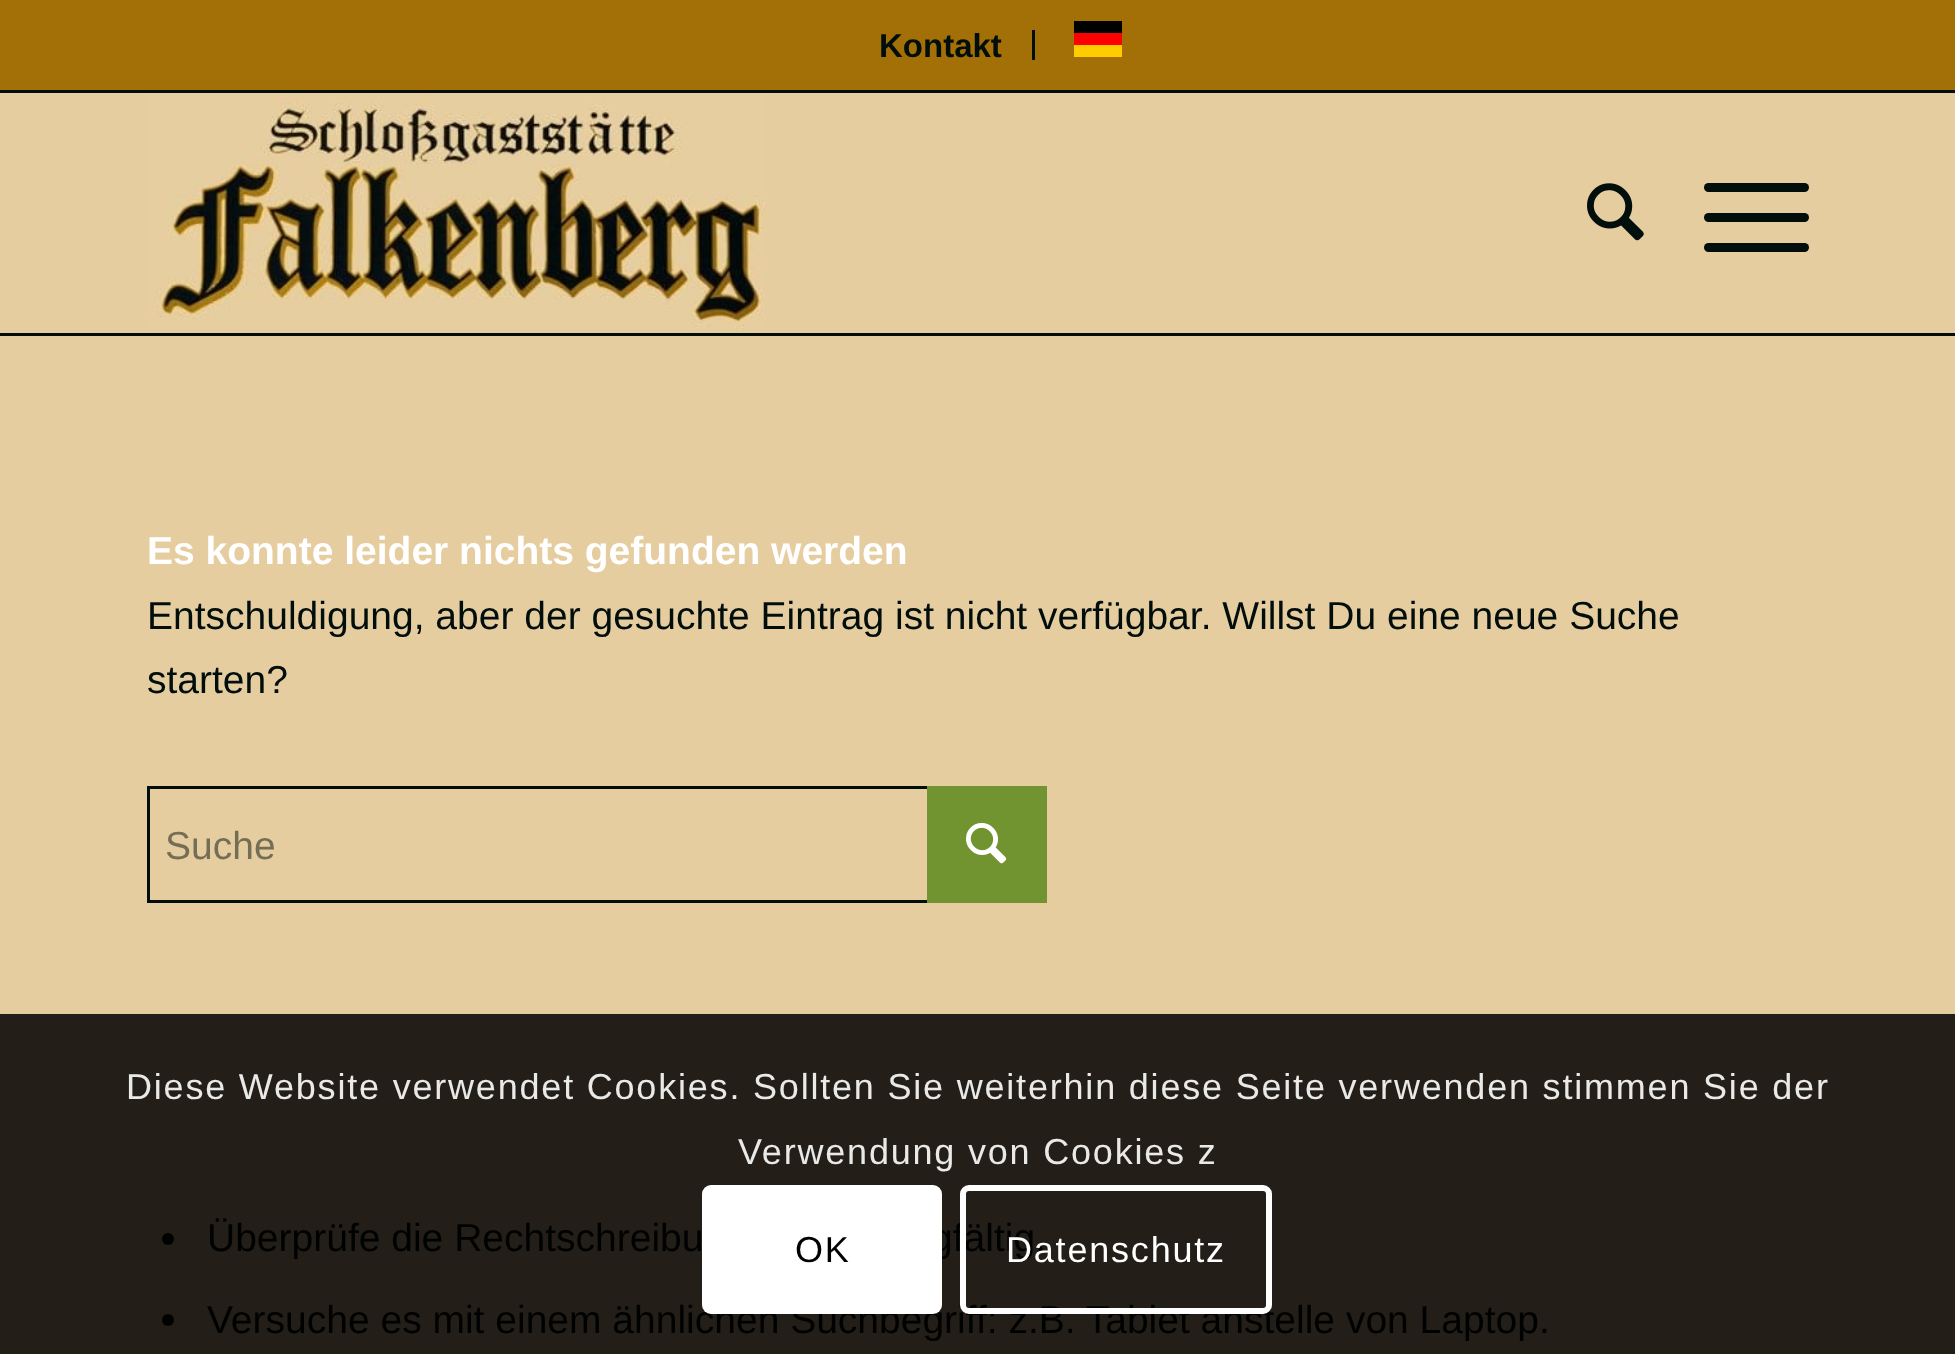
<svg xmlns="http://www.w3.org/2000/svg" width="1955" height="1354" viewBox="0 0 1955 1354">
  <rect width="100%" height="100%" fill="#e6cda0"/>
  <rect x="0" y="0" width="1955" height="90" fill="#a36f07"/>
  <rect x="0" y="90" width="1955" height="3" fill="#020e0c"/>
  <rect x="1032" y="30" width="3" height="30" fill="#020e0c"/>
  <text x="879" y="57" font-family="Liberation Sans" font-size="33" font-weight="bold" fill="#020e0c">Kontakt</text>
  <rect x="1074" y="45" width="48" height="12" fill="#ffcc00"/>
  <rect x="1074" y="21" width="48" height="12" fill="#000000"/>
  <rect x="1074" y="33" width="48" height="12" fill="#ff0000"/>
  <rect x="0" y="333" width="1955" height="3" fill="#020e0c"/>
  <image x="147" y="93" width="618" height="236" href="img1.png"/>
  <image x="1587" y="183" width="57" height="58" href="img2.png"/>
  <rect x="1704" y="213" width="105" height="9" rx="4.5" fill="#020e0c"/>
  <rect x="1704" y="183" width="105" height="9" rx="4.5" fill="#020e0c"/>
  <rect x="1704" y="243" width="105" height="9" rx="4.5" fill="#020e0c"/>
  <rect x="0" y="1014" width="1955" height="340" fill="#231f18"/>
  <text x="147" y="564" font-family="Liberation Sans" font-size="39" font-weight="bold" fill="#ffffff">Es konnte leider nichts gefunden werden</text>
  <text x="147" y="629" font-family="Liberation Sans" font-size="39" fill="#020e0c">Entschuldigung, aber der gesuchte Eintrag ist nicht verfügbar. Willst Du eine neue Suche</text>
  <text x="147" y="693" font-family="Liberation Sans" font-size="39" fill="#020e0c">starten?</text>
  <rect x="148.5" y="787.5" width="897" height="114" fill="none" stroke="#020e0c" stroke-width="3"/>
  <text x="165" y="859" font-family="Liberation Sans" font-size="39" fill="#746e56">Suche</text>
  <rect x="927" y="786" width="120" height="117" fill="#719430"/>
  <image x="966" y="822" width="41" height="42" href="img3.png"/>
  <circle cx="168" cy="1239" r="6" fill="#000202"/>
  <text x="207" y="1251" font-family="Liberation Sans" font-size="39" fill="#000202">Überprüfe die Rechtschreibu</text>
  <text x="931" y="1251" font-family="Liberation Sans" font-size="39" fill="#000202">gfältig.</text>
  <circle cx="168" cy="1320" r="6" fill="#000202"/>
  <text x="207" y="1333" font-family="Liberation Sans" font-size="39" fill="#000202">Versuche es mit einem ähnlichen Suchbegriff: z.B. Tablet anstelle von Laptop.</text>
  <text x="126" y="1099" font-family="Liberation Sans" font-size="36" letter-spacing="1.8" fill="#e9e9e8">Diese Website verwendet Cookies. Sollten Sie weiterhin diese Seite verwenden stimmen Sie der</text>
  <text x="738" y="1164" font-family="Liberation Sans" font-size="36" letter-spacing="1.8" fill="#e9e9e8">Verwendung von Cookies z</text>
  <rect x="702" y="1185" width="240" height="129" rx="9" fill="#ffffff"/>
  <text x="795" y="1262" font-family="Liberation Sans" font-size="36" letter-spacing="1.8" fill="#000202">OK</text>
  <rect x="963" y="1188" width="306" height="123" rx="6" fill="none" stroke="#ffffff" stroke-width="6"/>
  <text x="1006" y="1262" font-family="Liberation Sans" font-size="36" letter-spacing="1.8" fill="#ffffff">Datenschutz</text>
</svg>
